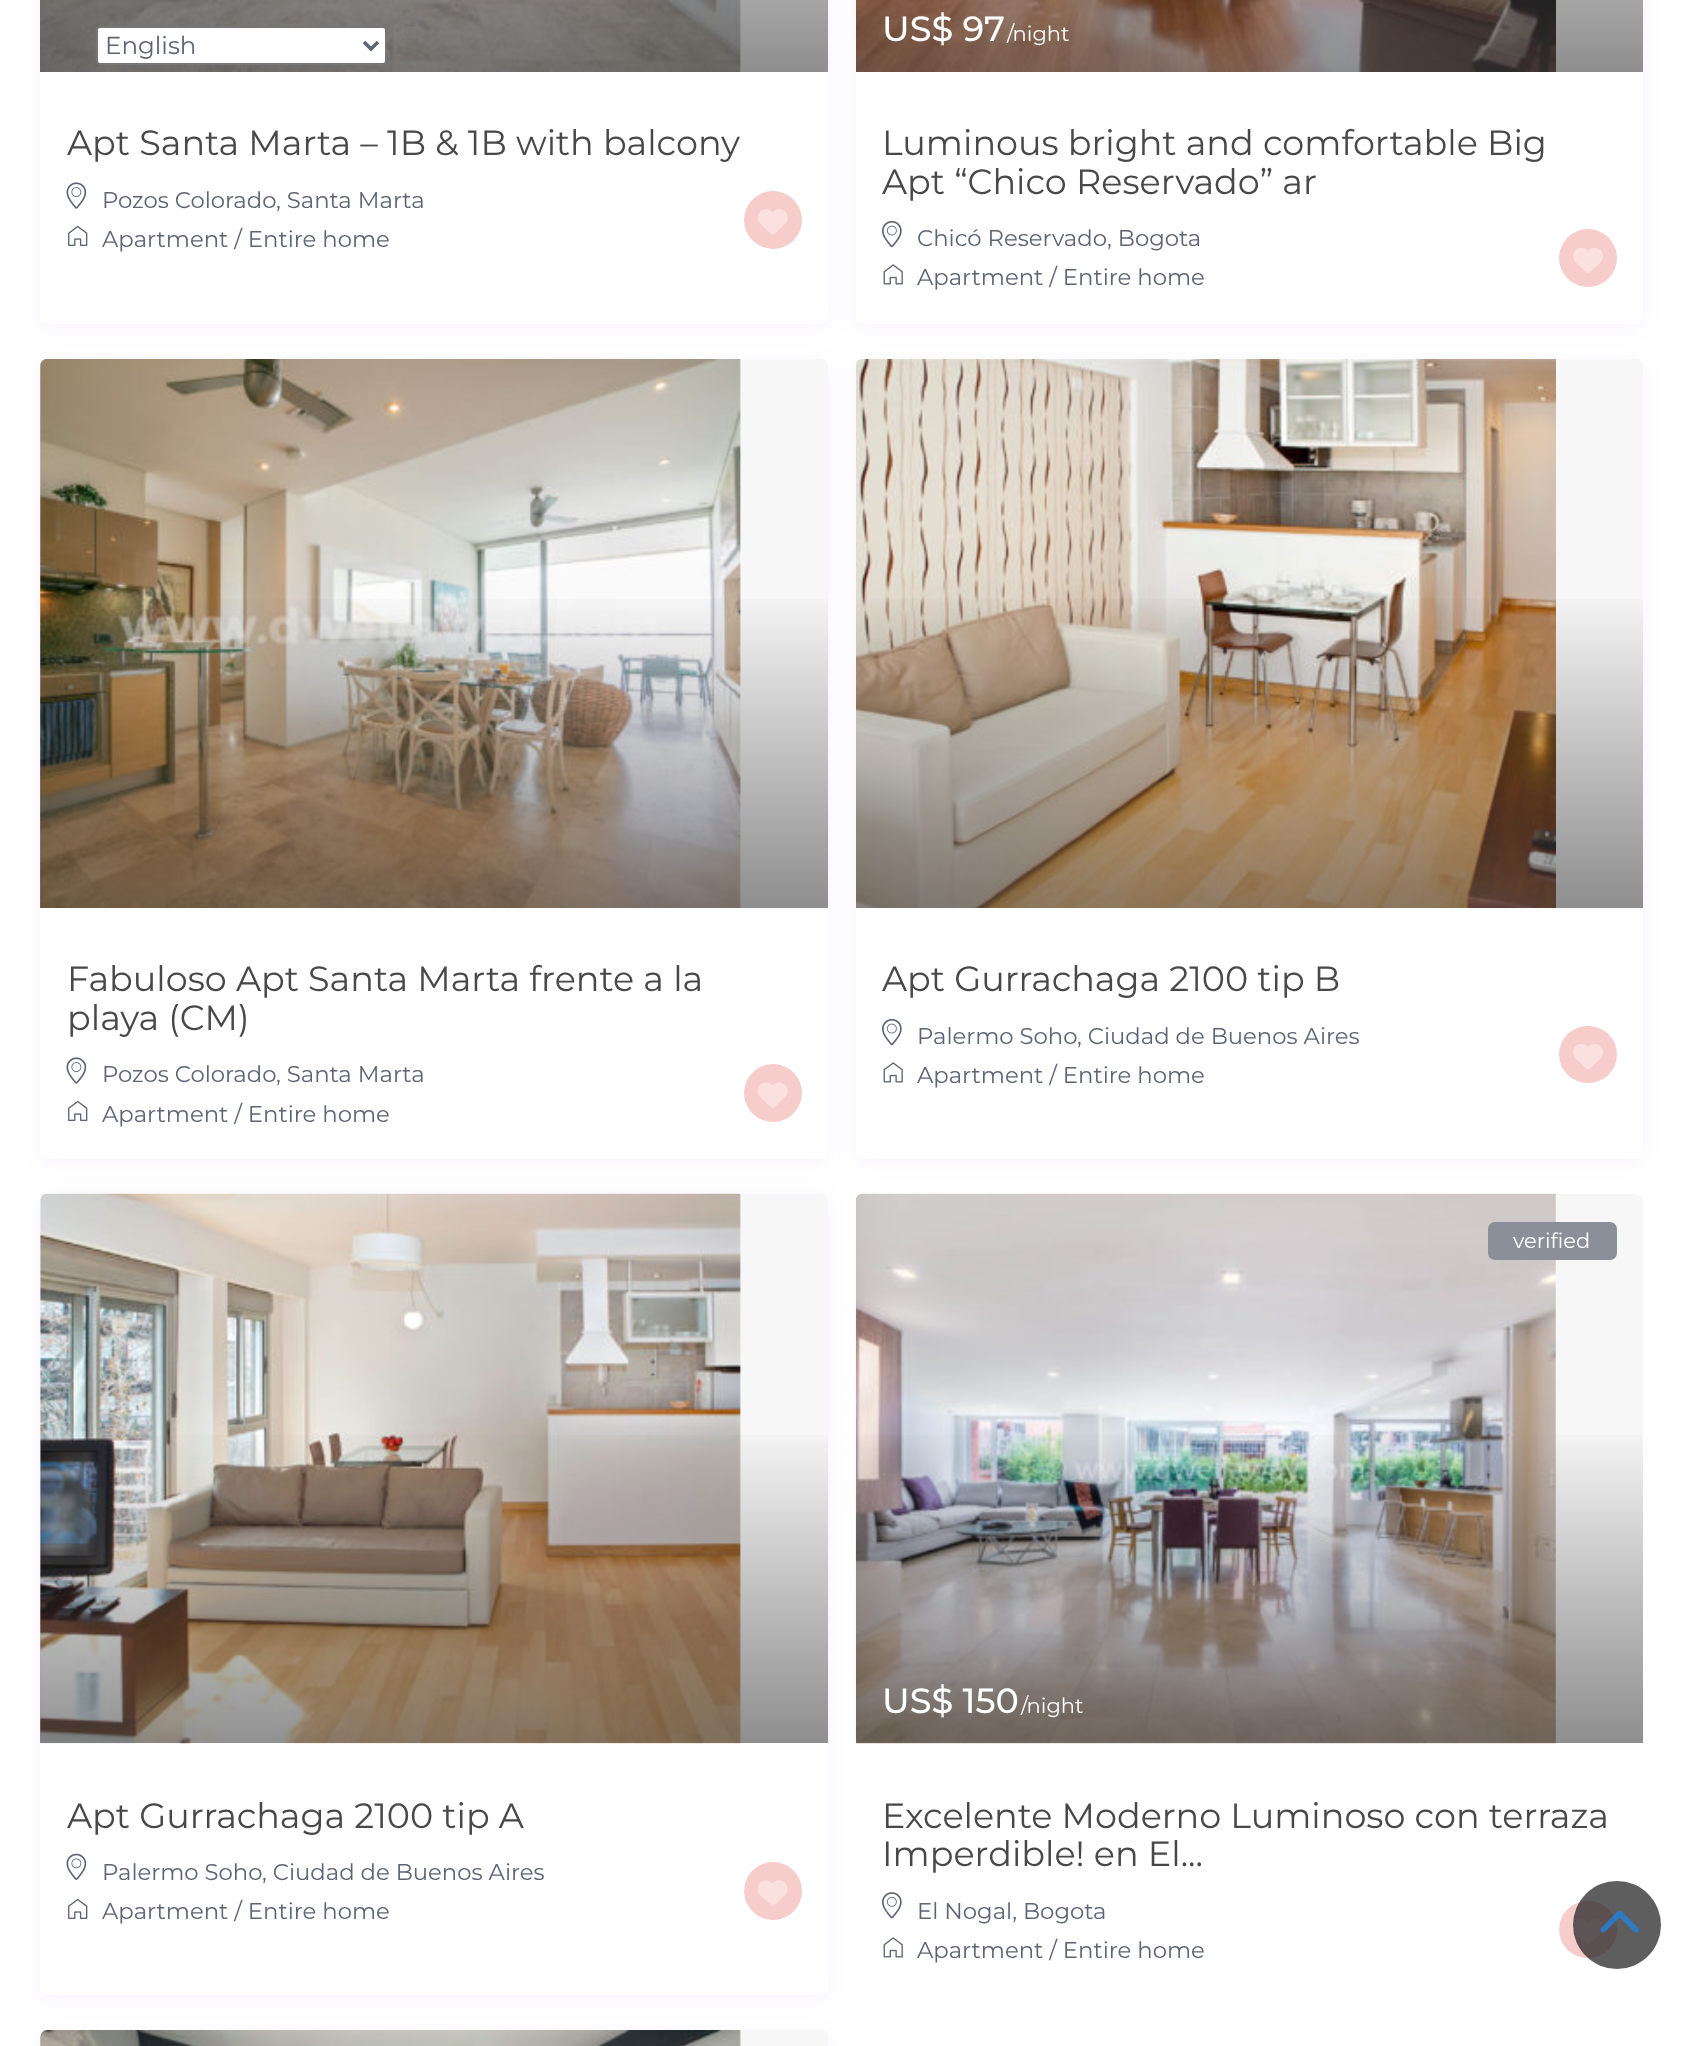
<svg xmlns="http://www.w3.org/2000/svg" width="1687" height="2046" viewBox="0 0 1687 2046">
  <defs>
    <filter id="blur1" x="-50%" y="-200%" width="200%" height="500%"><feGaussianBlur stdDeviation="9.5"/></filter>
    <linearGradient id="g1" gradientUnits="userSpaceOnUse" x1="434" y1="-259" x2="434" y2="72"><stop offset="0.03" stop-color="#484848" stop-opacity="0"/><stop offset="1" stop-color="#484848" stop-opacity="0.6"/></linearGradient>
    <linearGradient id="g2" gradientUnits="userSpaceOnUse" x1="1250" y1="-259" x2="1250" y2="72"><stop offset="0.03" stop-color="#484848" stop-opacity="0"/><stop offset="1" stop-color="#484848" stop-opacity="0.6"/></linearGradient>
    <linearGradient id="g3" gradientUnits="userSpaceOnUse" x1="434" y1="578" x2="434" y2="908"><stop offset="0.03" stop-color="#484848" stop-opacity="0"/><stop offset="1" stop-color="#484848" stop-opacity="0.6"/></linearGradient>
    <linearGradient id="g4" gradientUnits="userSpaceOnUse" x1="1250" y1="578" x2="1250" y2="908"><stop offset="0.03" stop-color="#484848" stop-opacity="0"/><stop offset="1" stop-color="#484848" stop-opacity="0.6"/></linearGradient>
    <linearGradient id="g5" gradientUnits="userSpaceOnUse" x1="434" y1="1414" x2="434" y2="1743"><stop offset="0.03" stop-color="#484848" stop-opacity="0"/><stop offset="1" stop-color="#484848" stop-opacity="0.6"/></linearGradient>
    <linearGradient id="g6" gradientUnits="userSpaceOnUse" x1="1250" y1="1414" x2="1250" y2="1743"><stop offset="0.03" stop-color="#484848" stop-opacity="0"/><stop offset="1" stop-color="#484848" stop-opacity="0.6"/></linearGradient>
  </defs>
  <rect width="100%" height="100%" fill="#ffffff"/>
  <rect x="40" y="-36" width="788" height="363" rx="7" fill="#b57ffa" fill-opacity="0.1" filter="url(#blur1)"/>
  <rect x="40" y="-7" width="788" height="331" rx="7" fill="#ffffff"/>
  <rect x="856" y="-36" width="787" height="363" rx="7" fill="#b57ffa" fill-opacity="0.1" filter="url(#blur1)"/>
  <path d="M47-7H821C825-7 828-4 828 0V67C828 70 826 72 823 72H45C42 72 40 70 40 67V0C40-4 43-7 47-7Z" fill="#f7f7f7"/>
  <image x="40" y="0" width="701" height="72" href="img1.png"/>
  <rect x="40" y="0" width="788" height="72" fill="url(#g1)"/>
  <text x="67" y="155" font-family="Montserrat" font-size="35" fill="#484848">Apt Santa Marta – 1B &amp; 1B with balcony</text>
  <image x="66" y="182" width="21" height="27" href="img2.png"/>
  <text x="102" y="208" font-family="Montserrat" font-size="22.75" fill="#5d6475">Pozos Colorado</text>
  <text x="276" y="208" font-family="Montserrat" font-size="22.75" fill="#5d6475">, Santa Marta</text>
  <image x="68" y="225" width="20" height="21" href="img3.png"/>
  <text x="102" y="247" font-family="Montserrat" font-size="22.75" fill="#5d6475">Apartment / Entire home</text>
  <circle cx="773" cy="220" r="29" fill="#f7cdcc"/>
  <image x="757" y="209" width="31" height="26" href="img4.png"/>
  <rect x="856" y="-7" width="787" height="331" rx="7" fill="#ffffff"/>
  <path d="M863-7H1636C1640-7 1643-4 1643 0V67C1643 70 1641 72 1638 72H861C858 72 856 70 856 67V0C856-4 859-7 863-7Z" fill="#f7f7f7"/>
  <image x="856" y="0" width="700" height="72" href="img5.png"/>
  <rect x="856" y="0" width="787" height="72" fill="url(#g2)"/>
  <text x="882" y="41" font-family="Montserrat" font-size="35" font-weight="500" fill="#ffffff">US$ 97</text>
  <text x="1007" y="41" font-family="Montserrat" font-size="21" fill="#ffffff">/night</text>
  <text x="882" y="155" font-family="Montserrat" font-size="35" fill="#484848">Luminous bright and comfortable Big</text>
  <text x="882" y="194" font-family="Montserrat" font-size="35" fill="#484848">Apt “Chico Reservado” ar</text>
  <image x="882" y="220" width="20" height="28" href="img6.png"/>
  <text x="917" y="246" font-family="Montserrat" font-size="22.75" fill="#5d6475">Chicó Reservado</text>
  <text x="1107" y="246" font-family="Montserrat" font-size="22.75" fill="#5d6475">, Bogota</text>
  <image x="883" y="264" width="20" height="21" href="img7.png"/>
  <text x="917" y="285" font-family="Montserrat" font-size="22.75" fill="#5d6475">Apartment / Entire home</text>
  <circle cx="1588" cy="258" r="29" fill="#f7cdcc"/>
  <image x="1573" y="247" width="30" height="26" href="img8.png"/>
  <rect x="40" y="362" width="788" height="800" rx="7" fill="#b57ffa" fill-opacity="0.1" filter="url(#blur1)"/>
  <rect x="40" y="359" width="788" height="800" rx="7" fill="#ffffff"/>
  <rect x="856" y="362" width="787" height="800" rx="7" fill="#b57ffa" fill-opacity="0.1" filter="url(#blur1)"/>
  <path d="M47 359H821C825 359 828 362 828 366V903C828 906 826 908 823 908H45C42 908 40 906 40 903V366C40 362 43 359 47 359Z" fill="#f7f7f7"/>
  <image x="40" y="359" width="701" height="549" href="img9.png"/>
  <rect x="40" y="599" width="788" height="309" fill="url(#g3)"/>
  <text x="67" y="991" font-family="Montserrat" font-size="35" fill="#484848">Fabuloso Apt Santa Marta frente a la</text>
  <text x="67" y="1030" font-family="Montserrat" font-size="35" fill="#484848">playa (CM)</text>
  <image x="66" y="1057" width="21" height="27" href="img2.png"/>
  <text x="102" y="1082" font-family="Montserrat" font-size="22.75" fill="#5d6475">Pozos Colorado</text>
  <text x="276" y="1082" font-family="Montserrat" font-size="22.75" fill="#5d6475">, Santa Marta</text>
  <image x="68" y="1100" width="20" height="21" href="img3.png"/>
  <text x="102" y="1122" font-family="Montserrat" font-size="22.75" fill="#5d6475">Apartment / Entire home</text>
  <circle cx="773" cy="1093" r="29" fill="#f7cdcc"/>
  <image x="757" y="1082" width="31" height="26" href="img10.png"/>
  <rect x="856" y="359" width="787" height="800" rx="7" fill="#ffffff"/>
  <path d="M863 359H1636C1640 359 1643 362 1643 366V903C1643 906 1641 908 1638 908H861C858 908 856 906 856 903V366C856 362 859 359 863 359Z" fill="#f7f7f7"/>
  <image x="856" y="359" width="700" height="549" href="img11.png"/>
  <rect x="856" y="599" width="787" height="309" fill="url(#g4)"/>
  <text x="882" y="991" font-family="Montserrat" font-size="35" fill="#484848">Apt Gurrachaga 2100 tip B</text>
  <image x="882" y="1018" width="20" height="28" href="img6.png"/>
  <text x="917" y="1044" font-family="Montserrat" font-size="22.75" fill="#5d6475">Palermo Soho</text>
  <text x="1077" y="1044" font-family="Montserrat" font-size="22.75" fill="#5d6475">, Ciudad de Buenos Aires</text>
  <image x="883" y="1062" width="20" height="21" href="img7.png"/>
  <text x="917" y="1083" font-family="Montserrat" font-size="22.75" fill="#5d6475">Apartment / Entire home</text>
  <rect x="1559" y="1026" width="58" height="57" rx="28.5" fill="#f7cdcc"/>
  <image x="1573" y="1044" width="30" height="26" href="img12.png"/>
  <rect x="40" y="1197" width="788" height="802" rx="7" fill="#b57ffa" fill-opacity="0.1" filter="url(#blur1)"/>
  <rect x="40" y="1194" width="788" height="801" rx="7" fill="#ffffff"/>
  <path d="M47 1194H821C825 1194 828 1197 828 1201V1738C828 1741 826 1743 823 1743H45C42 1743 40 1741 40 1738V1201C40 1197 43 1194 47 1194Z" fill="#f7f7f7"/>
  <image x="40" y="1193" width="701" height="551" href="img13.png"/>
  <rect x="40" y="1435" width="788" height="308" fill="url(#g5)"/>
  <text x="67" y="1828" font-family="Montserrat" font-size="35" fill="#484848">Apt Gurrachaga 2100 tip A</text>
  <image x="66" y="1853" width="21" height="27" href="img14.png"/>
  <text x="102" y="1880" font-family="Montserrat" font-size="22.75" fill="#5d6475">Palermo Soho</text>
  <text x="262" y="1880" font-family="Montserrat" font-size="22.75" fill="#5d6475">, Ciudad de Buenos Aires</text>
  <image x="68" y="1898" width="20" height="21" href="img3.png"/>
  <text x="102" y="1919" font-family="Montserrat" font-size="22.75" fill="#5d6475">Apartment / Entire home</text>
  <circle cx="773" cy="1891" r="29" fill="#f7cdcc"/>
  <image x="757" y="1880" width="31" height="26" href="img10.png"/>
  <path d="M863 1194H1636C1640 1194 1643 1197 1643 1201V1738C1643 1741 1641 1743 1638 1743H861C858 1743 856 1741 856 1738V1201C856 1197 859 1194 863 1194Z" fill="#f7f7f7"/>
  <image x="855" y="1193" width="701" height="551" href="img15.png"/>
  <rect x="1488" y="1222" width="129" height="38" rx="7" fill="#8a8f9a"/>
  <text x="1513" y="1248" font-family="Montserrat" font-size="21" fill="#ffffff">verified</text>
  <rect x="856" y="1435" width="787" height="308" fill="url(#g6)"/>
  <text x="882" y="1713" font-family="Montserrat" font-size="35" font-weight="500" fill="#ffffff">US$ 150</text>
  <text x="1021" y="1713" font-family="Montserrat" font-size="21" fill="#ffffff">/night</text>
  <text x="882" y="1828" font-family="Montserrat" font-size="35" fill="#484848">Excelente Moderno Luminoso con terraza</text>
  <text x="882" y="1866" font-family="Montserrat" font-size="35" fill="#484848">Imperdible! en El...</text>
  <image x="882" y="1892" width="20" height="27" href="img16.png"/>
  <text x="917" y="1919" font-family="Montserrat" font-size="22.75" fill="#5d6475">El Nogal, Bogota</text>
  <image x="883" y="1937" width="20" height="21" href="img7.png"/>
  <text x="917" y="1958" font-family="Montserrat" font-size="22.75" fill="#5d6475">Apartment / Entire home</text>
  <rect x="1559" y="1901" width="58" height="57" rx="28.5" fill="#f7cdcc"/>
  <image x="1573" y="1919" width="30" height="26" href="img12.png"/>
  <rect x="40" y="2034" width="788" height="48" rx="7" fill="#b57ffa" fill-opacity="0.1" filter="url(#blur1)"/>
  <path d="M47 2030H821C825 2030 828 2033 828 2037V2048C828 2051 826 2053 823 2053H45C42 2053 40 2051 40 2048V2037C40 2033 43 2030 47 2030Z" fill="#f7f7f7"/>
  <image x="40" y="2030" width="701" height="16" href="img17.png"/>
  <rect x="97" y="27" width="289" height="37" rx="3" fill="#ffffff" stroke="#767676" stroke-width="2"/>
  <path d="M364 42L371 49L378 42" fill="none" stroke="#5d6475" stroke-width="3.5"/>
  <text x="105" y="54" font-family="Montserrat" font-size="24.5" fill="#5d6475">English</text>
  <circle cx="1617" cy="1925" r="44" fill="#1a1a1a" fill-opacity="0.7"/>
  <image x="1600" y="1910" width="39" height="23" href="img18.png"/>
</svg>
